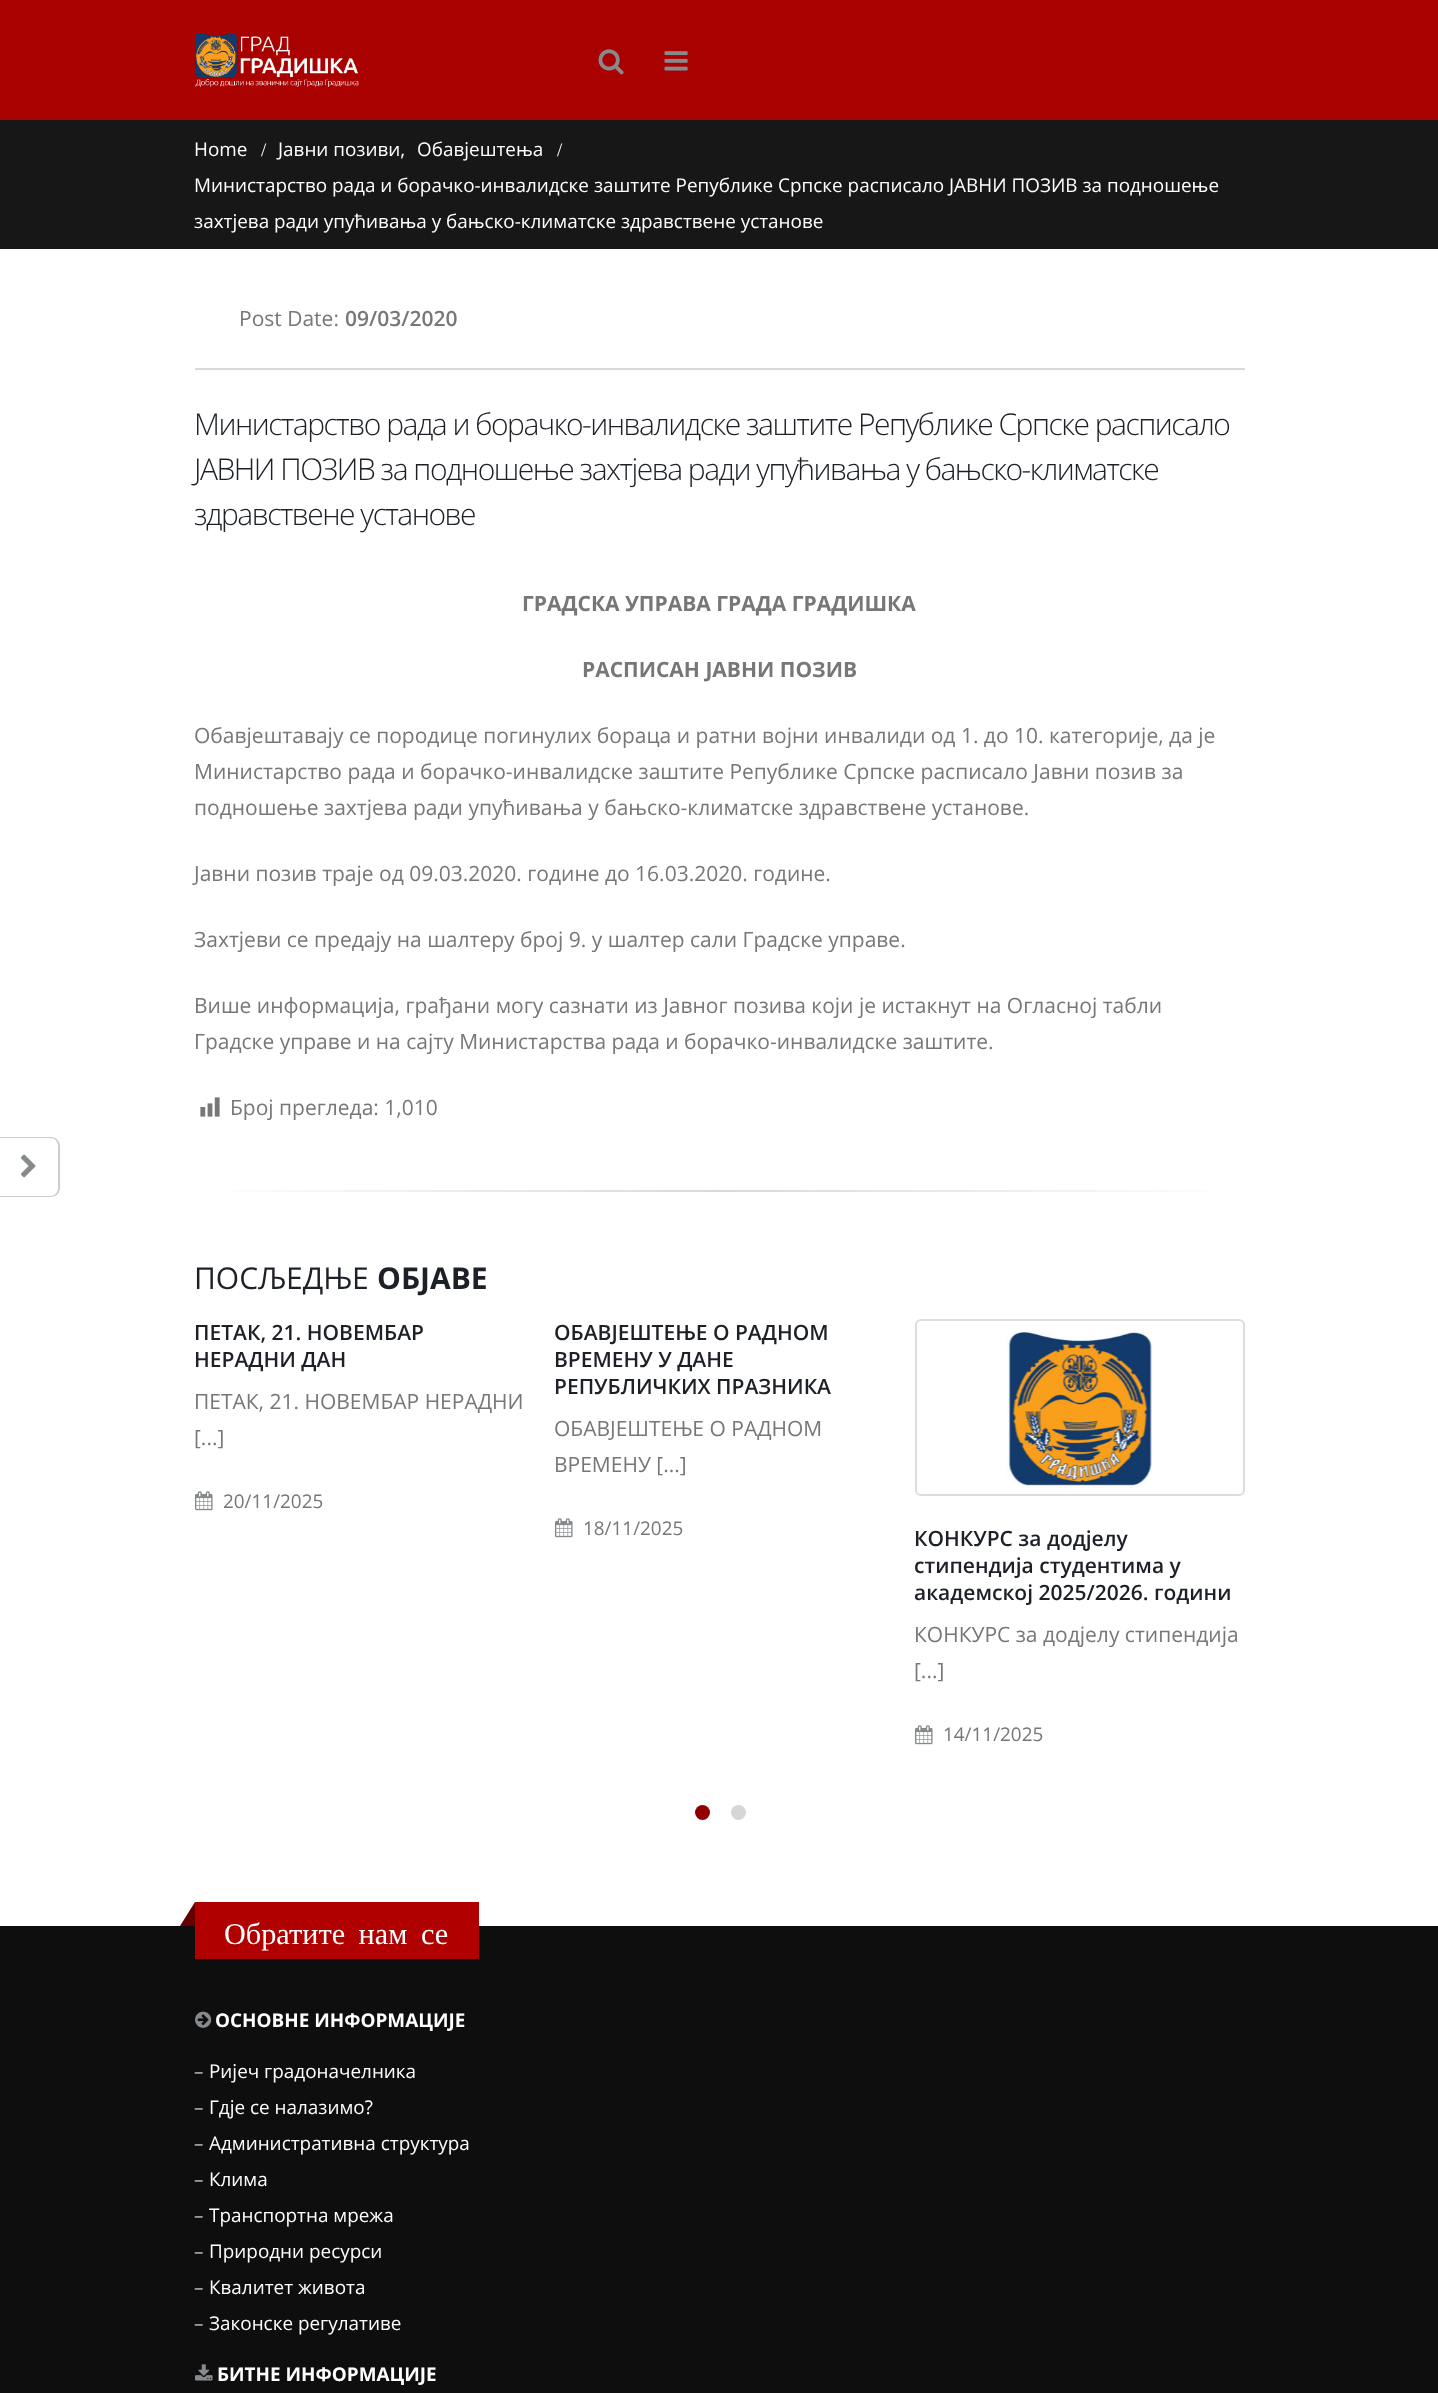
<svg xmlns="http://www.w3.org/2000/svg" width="1438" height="2393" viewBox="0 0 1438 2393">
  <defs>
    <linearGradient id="g1" gradientUnits="userSpaceOnUse" x1="195" y1="1190" x2="1245" y2="1190"><stop offset="0" stop-color="#ffffff"/><stop offset="0.5" stop-color="#d9d9d9"/><stop offset="1" stop-color="#ffffff"/></linearGradient>
  </defs>
  <rect width="100%" height="100%" fill="#ffffff"/>
  <path d="M0 1137H51C56 1137 60 1141 60 1146V1188C60 1193 56 1197 51 1197H0ZM0 1138H51C55 1138 58 1142 58 1146V1188C58 1192 55 1196 51 1196H0Z" fill="#cccccc" fill-rule="evenodd"/>
  <image x="20" y="1154" width="16" height="24" href="img1.png"/>
  <rect x="0" y="0" width="1438" height="120" fill="#a90000"/>
  <image x="195" y="33" width="164" height="54" href="img2.png"/>
  <image x="598" y="49" width="26" height="26" href="img3.png"/>
  <image x="664" y="51" width="24" height="20" href="img4.png"/>
  <rect x="0" y="120" width="1438" height="129" fill="#171717"/>
  <text x="194" y="156" font-family="Open Sans" font-size="18.9" fill="#ffffff">Home</text>
  <text x="261" y="156" font-family="Liberation Serif" font-size="18.9" fill="#ffffff">/</text>
  <text x="278" y="156" font-family="Open Sans" font-size="18.9" fill="#ffffff">Јавни позиви,</text>
  <text x="417" y="156" font-family="Open Sans" font-size="18.9" fill="#ffffff">Обавјештења</text>
  <text x="557" y="156" font-family="Liberation Serif" font-size="18.9" fill="#ffffff">/</text>
  <text x="194" y="192" font-family="Open Sans" font-size="18.9" fill="#ffffff">Министарство рада и борачко-инвалидске заштите Републике Српске расписало ЈАВНИ ПОЗИВ за подношење</text>
  <text x="194" y="228" font-family="Open Sans" font-size="18.9" fill="#ffffff">захтјева ради упућивања у бањско-климатске здравствене установе</text>
  <text x="239" y="326" font-family="Open Sans" font-size="21" fill="#777777">Post Date:</text>
  <text x="345" y="326" font-family="Open Sans" font-size="21" font-weight="600" fill="#777777">09/03/2020</text>
  <rect x="195" y="368" width="1050" height="2" fill="#d9d9d9"/>
  <text x="194" y="435" font-family="Open Sans" font-size="30" font-weight="300" letter-spacing="-1.5" fill="#1d2127">Министарство рада и борачко-инвалидске заштите Републике Српске расписало</text>
  <text x="194" y="480" font-family="Open Sans" font-size="30" font-weight="300" letter-spacing="-1.5" fill="#1d2127">ЈАВНИ ПОЗИВ за подношење захтјева ради упућивања у бањско-климатске</text>
  <text x="194" y="525" font-family="Open Sans" font-size="30" font-weight="300" letter-spacing="-1.5" fill="#1d2127">здравствене установе</text>
  <text x="522" y="611" font-family="Open Sans" font-size="21" font-weight="bold" fill="#777777">ГРАДСКА УПРАВА ГРАДА ГРАДИШКА</text>
  <text x="582" y="677" font-family="Open Sans" font-size="21" font-weight="bold" fill="#777777">РАСПИСАН ЈАВНИ ПОЗИВ</text>
  <text x="194" y="743" font-family="Open Sans" font-size="21" fill="#777777">Обавјештавају се породице погинулих бораца и ратни војни инвалиди од 1. до 10. категорије, да је</text>
  <text x="194" y="779" font-family="Open Sans" font-size="21" fill="#777777">Министарство рада и борачко-инвалидске заштите Републике Српске расписало Јавни позив за</text>
  <text x="194" y="815" font-family="Open Sans" font-size="21" fill="#777777">подношење захтјева ради упућивања у бањско-климатске здравствене установе.</text>
  <text x="194" y="881" font-family="Open Sans" font-size="21" fill="#777777">Јавни позив траје од 09.03.2020. године до 16.03.2020. године.</text>
  <text x="194" y="947" font-family="Open Sans" font-size="21" fill="#777777">Захтјеви се предају на шалтеру број 9. у шалтер сали Градске управе.</text>
  <text x="194" y="1013" font-family="Open Sans" font-size="21" fill="#777777">Више информација, грађани могу сазнати из Јавног позива који је истакнут на Огласној табли</text>
  <text x="194" y="1049" font-family="Open Sans" font-size="21" fill="#777777">Градске управе и на сајту Министарства рада и борачко-инвалидске заштите.</text>
  <image x="200" y="1097" width="20" height="20" href="img5.png"/>
  <text x="230" y="1115" font-family="Open Sans" font-size="21" fill="#777777">Број прегледа: 1,010</text>
  <rect x="230" y="1190" width="980" height="2" fill="url(#g1)"/>
  <text x="194" y="1289" font-family="Open Sans" font-size="30" fill="#1d2127">ПОСЉЕДЊЕ</text>
  <text x="377" y="1289" font-family="Open Sans" font-size="30" font-weight="bold" fill="#1d2127">ОБЈАВЕ</text>
  <text x="194" y="1340" font-family="Open Sans" font-size="21" font-weight="600" fill="#1d2127">ПЕТАК, 21. НОВЕМБАР</text>
  <text x="194" y="1367" font-family="Open Sans" font-size="21" font-weight="600" fill="#1d2127">НЕРАДНИ ДАН</text>
  <text x="194" y="1409" font-family="Open Sans" font-size="21" fill="#777777">ПЕТАК, 21. НОВЕМБАР НЕРАДНИ</text>
  <text x="194" y="1445" font-family="Open Sans" font-size="21" fill="#777777">[...]</text>
  <image x="195" y="1491" width="18" height="20" href="img6.png"/>
  <text x="223" y="1508" font-family="Open Sans" font-size="18.9" fill="#777777">20/11/2025</text>
  <text x="554" y="1340" font-family="Open Sans" font-size="21" font-weight="600" fill="#1d2127">ОБАВЈЕШТЕЊЕ О РАДНОМ</text>
  <text x="554" y="1367" font-family="Open Sans" font-size="21" font-weight="600" fill="#1d2127">ВРЕМЕНУ У ДАНЕ</text>
  <text x="554" y="1394" font-family="Open Sans" font-size="21" font-weight="600" fill="#1d2127">РЕПУБЛИЧКИХ ПРАЗНИКА</text>
  <text x="554" y="1436" font-family="Open Sans" font-size="21" fill="#777777">ОБАВЈЕШТЕЊЕ О РАДНОМ</text>
  <text x="554" y="1472" font-family="Open Sans" font-size="21" fill="#777777">ВРЕМЕНУ [...]</text>
  <image x="555" y="1518" width="18" height="20" href="img6.png"/>
  <text x="583" y="1535" font-family="Open Sans" font-size="18.9" fill="#777777">18/11/2025</text>
  <rect x="916" y="1320" width="328" height="175" rx="5" fill="none" stroke="#dddddd" stroke-width="2"/>
  <image x="1006" y="1331" width="147" height="157" href="img7.png"/>
  <text x="914" y="1546" font-family="Open Sans" font-size="21" font-weight="600" fill="#1d2127">КОНКУРС за додјелу</text>
  <text x="914" y="1573" font-family="Open Sans" font-size="21" font-weight="600" fill="#1d2127">стипендија студентима у</text>
  <text x="914" y="1600" font-family="Open Sans" font-size="21" font-weight="600" fill="#1d2127">академској 2025/2026. години</text>
  <text x="914" y="1642" font-family="Open Sans" font-size="21" fill="#777777">КОНКУРС за додјелу стипендија</text>
  <text x="914" y="1678" font-family="Open Sans" font-size="21" fill="#777777">[...]</text>
  <image x="915" y="1725" width="18" height="20" href="img6.png"/>
  <text x="943" y="1741" font-family="Open Sans" font-size="18.9" fill="#777777">14/11/2025</text>
  <circle cx="702.5" cy="1812.5" r="7.5" fill="#910000"/>
  <circle cx="738.5" cy="1812.5" r="7.5" fill="#d6d6d6"/>
  <rect x="0" y="1926" width="1438" height="467" fill="#0e0e0e"/>
  <rect x="195" y="1902" width="284" height="57" fill="#b00000"/>
  <path d="M195 1902V1926H180Z" fill="#640000"/>
  <text x="224" y="1944" word-spacing="6" font-family="Liberation Serif" font-size="30.25" fill="#ffffff">Обратите нам се</text>
  <image x="195" y="2011" width="17" height="17" href="img8.png"/>
  <text x="215" y="2027" font-family="Open Sans" font-size="18.9" font-weight="bold" fill="#ffffff">ОСНОВНЕ ИНФОРМАЦИЈЕ</text>
  <text x="194" y="2078" font-family="Open Sans" font-size="18.9" fill="#c2c2c2">–</text>
  <text x="209" y="2078" font-family="Open Sans" font-size="18.9" fill="#ffffff">Ријеч градоначелника</text>
  <text x="194" y="2114" font-family="Open Sans" font-size="18.9" fill="#c2c2c2">–</text>
  <text x="209" y="2114" font-family="Open Sans" font-size="18.9" fill="#ffffff">Гдје се налазимо?</text>
  <text x="194" y="2150" font-family="Open Sans" font-size="18.9" fill="#c2c2c2">–</text>
  <text x="209" y="2150" font-family="Open Sans" font-size="18.9" fill="#ffffff">Административна структура</text>
  <text x="194" y="2186" font-family="Open Sans" font-size="18.9" fill="#c2c2c2">–</text>
  <text x="209" y="2186" font-family="Open Sans" font-size="18.9" fill="#ffffff">Клима</text>
  <text x="194" y="2222" font-family="Open Sans" font-size="18.9" fill="#c2c2c2">–</text>
  <text x="209" y="2222" font-family="Open Sans" font-size="18.9" fill="#ffffff">Транспортна мрежа</text>
  <text x="194" y="2258" font-family="Open Sans" font-size="18.9" fill="#c2c2c2">–</text>
  <text x="209" y="2258" font-family="Open Sans" font-size="18.9" fill="#ffffff">Природни ресурси</text>
  <text x="194" y="2294" font-family="Open Sans" font-size="18.9" fill="#c2c2c2">–</text>
  <text x="209" y="2294" font-family="Open Sans" font-size="18.9" fill="#ffffff">Квалитет живота</text>
  <text x="194" y="2330" font-family="Open Sans" font-size="18.9" fill="#c2c2c2">–</text>
  <text x="209" y="2330" font-family="Open Sans" font-size="18.9" fill="#ffffff">Законске регулативе</text>
  <image x="195" y="2364" width="18" height="17" href="img9.png"/>
  <text x="217" y="2381" font-family="Open Sans" font-size="18.9" font-weight="bold" fill="#ffffff">БИТНЕ ИНФОРМАЦИЈЕ</text>
</svg>
